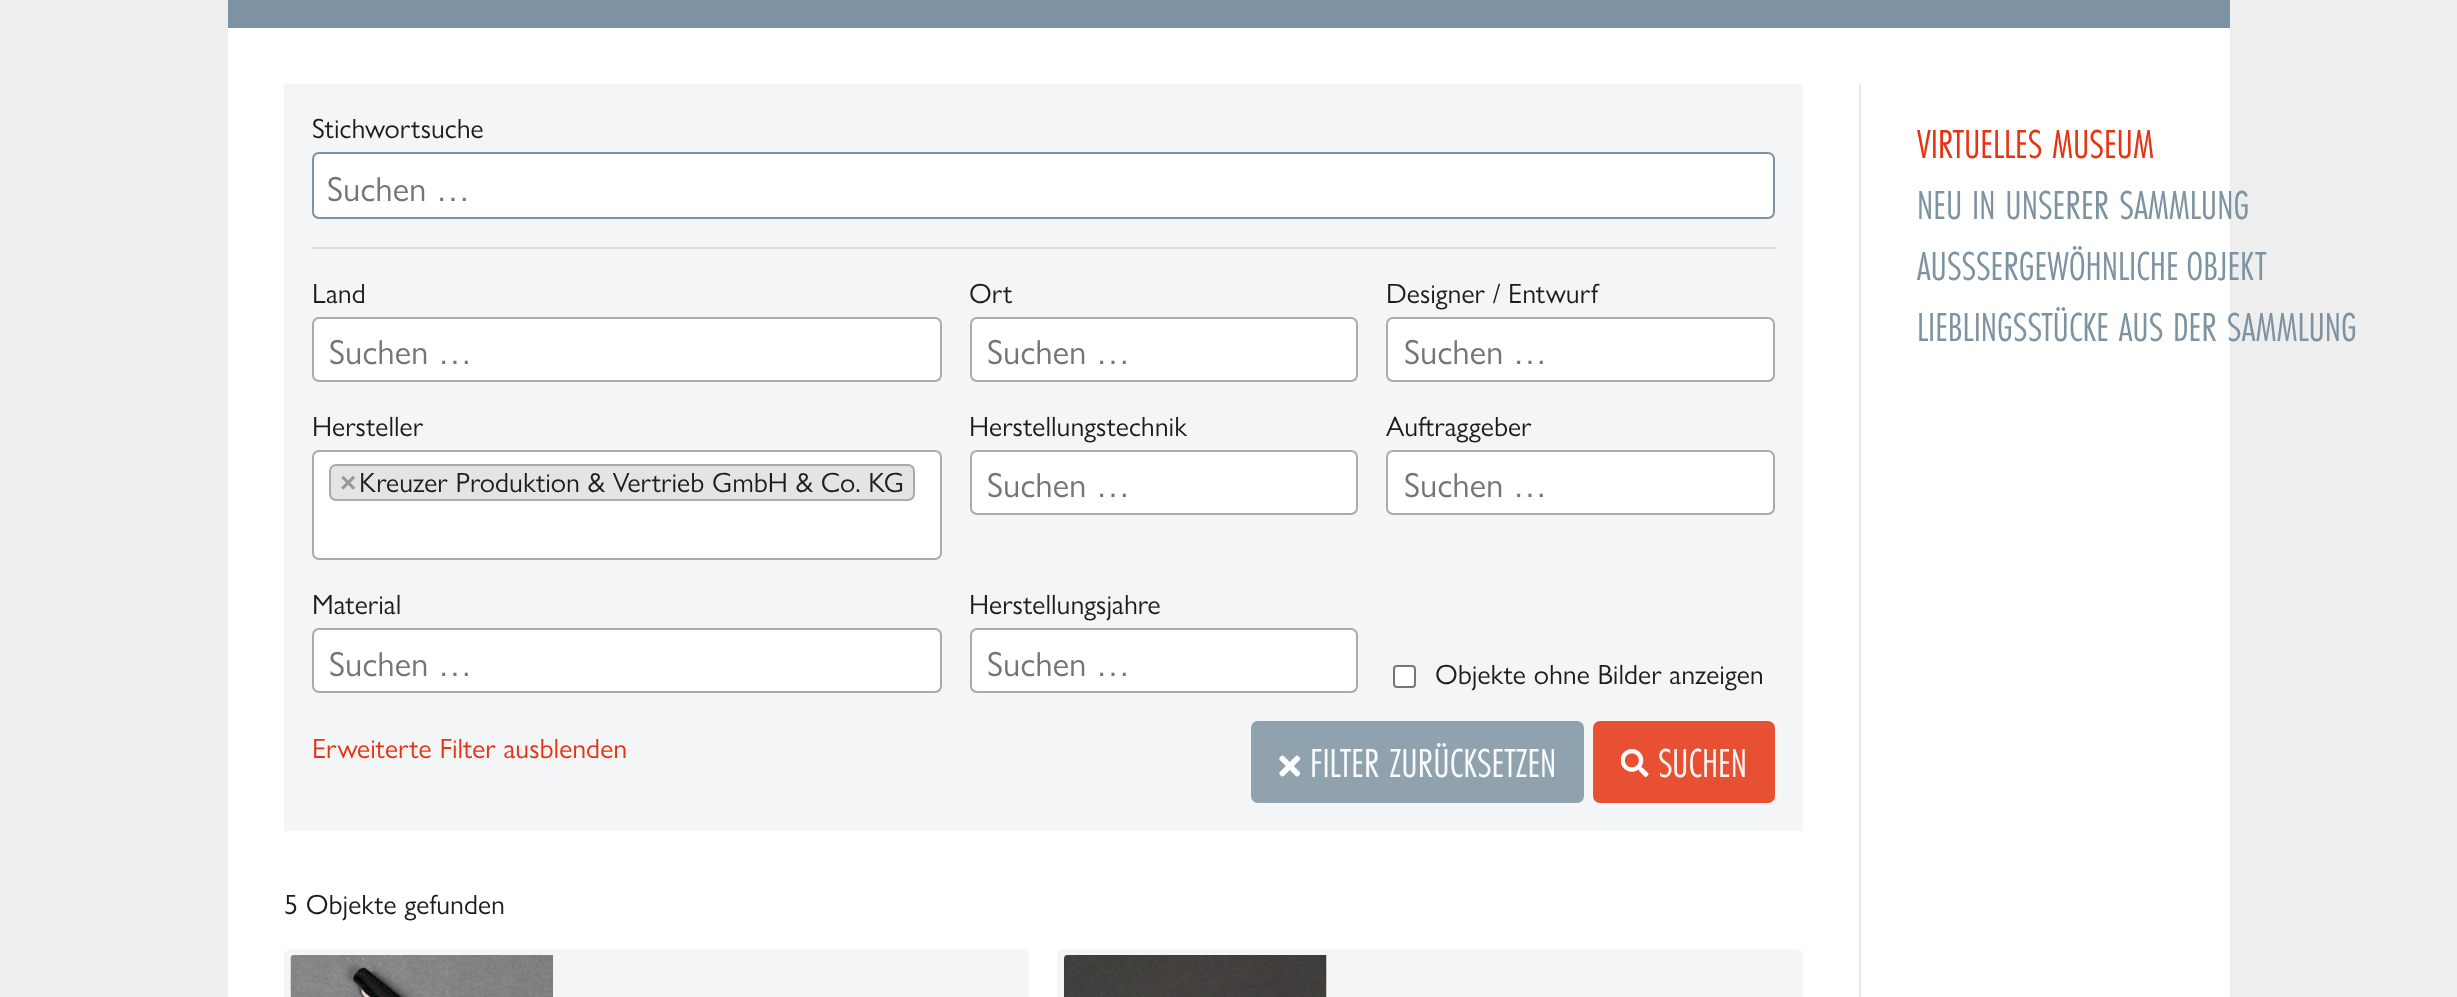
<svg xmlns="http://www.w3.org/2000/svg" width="2457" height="997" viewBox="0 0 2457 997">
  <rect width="100%" height="100%" fill="#eeeeee"/>
  <rect x="228" y="28" width="2002" height="969" fill="#ffffff"/>
  <rect x="228" y="0" width="2002" height="28" fill="#7d93a1"/>
  <rect x="284" y="84" width="1519" height="747" fill="#f3f5f7"/>
  <text x="312" y="138" font-family="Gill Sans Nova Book" font-size="28" fill="#1d1d1b">Stichwortsuche</text>
  <rect x="313" y="153" width="1461" height="65" rx="6" fill="#ffffff" stroke="#7d93a1" stroke-width="2"/>
  <text x="327" y="201" font-family="Gill Sans Nova Book" font-size="35" fill="#757575">Suchen …</text>
  <rect x="312" y="247" width="1463" height="2" fill="#dddddd"/>
  <text x="312" y="303" font-family="Gill Sans Nova Book" font-size="28" fill="#1d1d1b">Land</text>
  <rect x="313" y="318" width="628" height="63" rx="6" fill="#ffffff" stroke="#aaaaaa" stroke-width="2"/>
  <text x="329" y="364" font-family="Gill Sans Nova Book" font-size="35" fill="#757575">Suchen …</text>
  <text x="969" y="303" font-family="Gill Sans Nova Book" font-size="28" fill="#1d1d1b">Ort</text>
  <rect x="971" y="318" width="386" height="63" rx="6" fill="#ffffff" stroke="#aaaaaa" stroke-width="2"/>
  <text x="987" y="364" font-family="Gill Sans Nova Book" font-size="35" fill="#757575">Suchen …</text>
  <text x="1386" y="303" font-family="Gill Sans Nova Book" font-size="28" fill="#1d1d1b">Designer / Entwurf</text>
  <rect x="1387" y="318" width="387" height="63" rx="6" fill="#ffffff" stroke="#aaaaaa" stroke-width="2"/>
  <text x="1404" y="364" font-family="Gill Sans Nova Book" font-size="35" fill="#757575">Suchen …</text>
  <text x="312" y="436" font-family="Gill Sans Nova Book" font-size="28" fill="#1d1d1b">Hersteller</text>
  <rect x="313" y="451" width="628" height="108" rx="6" fill="#ffffff" stroke="#aaaaaa" stroke-width="2"/>
  <rect x="330" y="465" width="584" height="35" rx="6" fill="#e4e4e4" stroke="#aaaaaa" stroke-width="2"/>
  <text x="340" y="492" font-family="Liberation Sans" font-size="28" font-weight="bold" fill="#999999">×</text>
  <text x="359" y="492" font-family="Gill Sans Nova Book" font-size="28" fill="#1d1d1b">Kreuzer Produktion &amp; Vertrieb GmbH &amp; Co. KG</text>
  <text x="969" y="436" font-family="Gill Sans Nova Book" font-size="28" fill="#1d1d1b">Herstellungstechnik</text>
  <rect x="971" y="451" width="386" height="63" rx="6" fill="#ffffff" stroke="#aaaaaa" stroke-width="2"/>
  <text x="987" y="497" font-family="Gill Sans Nova Book" font-size="35" fill="#757575">Suchen …</text>
  <text x="1386" y="436" font-family="Gill Sans Nova Book" font-size="28" fill="#1d1d1b">Auftraggeber</text>
  <rect x="1387" y="451" width="387" height="63" rx="6" fill="#ffffff" stroke="#aaaaaa" stroke-width="2"/>
  <text x="1404" y="497" font-family="Gill Sans Nova Book" font-size="35" fill="#757575">Suchen …</text>
  <text x="312" y="614" font-family="Gill Sans Nova Book" font-size="28" fill="#1d1d1b">Material</text>
  <rect x="313" y="629" width="628" height="63" rx="6" fill="#ffffff" stroke="#aaaaaa" stroke-width="2"/>
  <text x="329" y="676" font-family="Gill Sans Nova Book" font-size="35" fill="#757575">Suchen …</text>
  <text x="969" y="614" font-family="Gill Sans Nova Book" font-size="28" fill="#1d1d1b">Herstellungsjahre</text>
  <rect x="971" y="629" width="386" height="63" rx="6" fill="#ffffff" stroke="#aaaaaa" stroke-width="2"/>
  <text x="987" y="676" font-family="Gill Sans Nova Book" font-size="35" fill="#757575">Suchen …</text>
  <rect x="1394" y="666" width="21" height="21" rx="3" fill="#ffffff" stroke="#767676" stroke-width="2"/>
  <text x="1435" y="684" font-family="Gill Sans Nova Book" font-size="28" fill="#1d1d1b">Objekte ohne Bilder anzeigen</text>
  <text x="312" y="758" font-family="Gill Sans Nova Book" font-size="28" fill="#e63312">Erweiterte Filter ausblenden</text>
  <rect x="1251" y="721" width="333" height="82" rx="7" fill="#8fa2ae"/>
  <image x="1279" y="755" width="21" height="22" href="img1.png"/>
  <text x="1310" y="777" font-family="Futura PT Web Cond" font-size="42" fill="#f9fafb">FILTER ZURÜCKSETZEN</text>
  <rect x="1593" y="721" width="182" height="82" rx="7" fill="#e85034"/>
  <image x="1621" y="749" width="28" height="28" href="img2.png"/>
  <text x="1658" y="777" font-family="Futura PT Web Cond" font-size="42" fill="#fef6f5">SUCHEN</text>
  <text x="284" y="914" font-family="Gill Sans Nova Book" font-size="28" fill="#1d1d1b">5 Objekte gefunden</text>
  <rect x="287.5" y="952.5" width="738" height="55" rx="3.5" fill="#f3f5f7" stroke="#f3f5f7" stroke-width="7"/>
  <image x="290" y="955" width="263" height="42" href="img3.png"/>
  <rect x="1060.5" y="952.5" width="739" height="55" rx="3.5" fill="#f3f5f7" stroke="#f3f5f7" stroke-width="7"/>
  <image x="1064" y="955" width="263" height="42" href="img4.png"/>
  <rect x="1859" y="84" width="2" height="913" fill="#e5e9ec"/>
  <text x="1917" y="158" font-family="Futura PT Web Cond" font-size="42" fill="#e63312">VIRTUELLES MUSEUM</text>
  <text x="1917" y="219" font-family="Futura PT Web Cond" font-size="42" fill="#7d93a1">NEU IN UNSERER SAMMLUNG</text>
  <text x="1917" y="280" font-family="Futura PT Web Cond" font-size="42" fill="#7d93a1">AUSS</text>
  <text x="1976" y="280" word-spacing="-2" font-family="Futura PT Web Cond" font-size="42" fill="#7d93a1">SERGEWÖHNLICHE OBJEKT</text>
  <text x="1917" y="341" font-family="Futura PT Web Cond" font-size="42" fill="#7d93a1">LIEBLINGSSTÜCKE AUS DER SAMMLUNG</text>
</svg>
